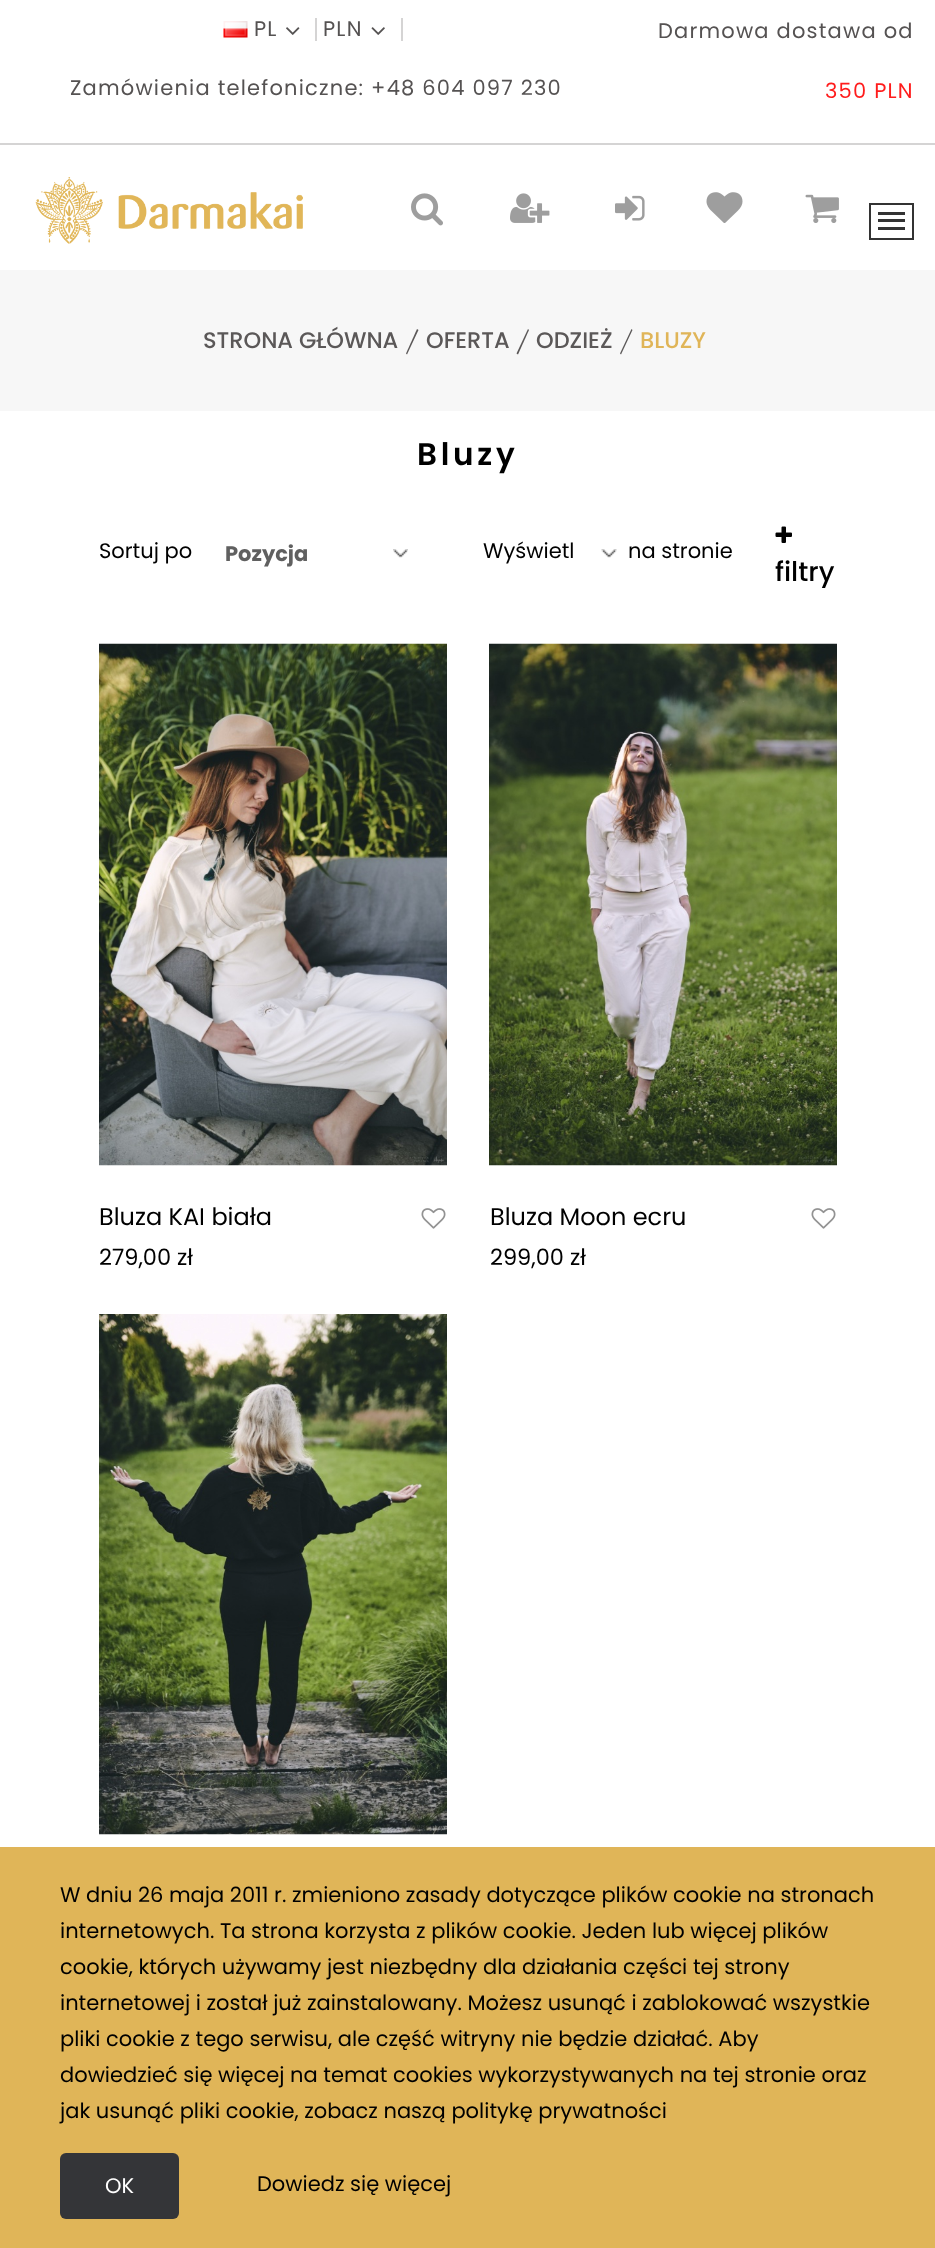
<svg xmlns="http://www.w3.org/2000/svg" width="935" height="2248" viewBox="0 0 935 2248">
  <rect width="100%" height="100%" fill="#ffffff"/>
  <rect x="0" y="143" width="935" height="2" fill="#d5d4d4"/>
  <image x="223" y="21" width="25" height="17" href="img1.png"/>
  <text x="254" y="36" font-family="Poppins" font-size="21" letter-spacing="1.2" fill="#555252">PL</text>
  <image x="286" y="27" width="14" height="8" href="img2.png"/>
  <rect x="315" y="18" width="2" height="23" fill="#d5d4d4"/>
  <text x="323" y="36" font-family="Poppins" font-size="21" letter-spacing="1.2" fill="#555252">PLN</text>
  <image x="371" y="27" width="14" height="8" href="img3.png"/>
  <rect x="401" y="18" width="2" height="23" fill="#d5d4d4"/>
  <text x="70" y="95" font-family="Poppins" font-size="21" letter-spacing="1.2" fill="#555252">Zamówienia telefoniczne: +48 604 097 230</text>
  <text x="658" y="38" font-family="Poppins" font-size="21" letter-spacing="1.2" fill="#555252">Darmowa dostawa od</text>
  <text x="825" y="98" font-family="Poppins" font-size="21" letter-spacing="1.2" fill="#ff1c1c">350 PLN</text>
  <image x="35" y="177" width="268" height="67" href="img4.png"/>
  <image x="411" y="193" width="32" height="33" href="img5.png"/>
  <image x="510" y="193" width="40" height="30" href="img6.png"/>
  <image x="615" y="195" width="30" height="26" href="img7.png"/>
  <image x="706" y="192" width="37" height="31" href="img8.png"/>
  <image x="805" y="194" width="34" height="29" href="img9.png"/>
  <rect x="870" y="204" width="43" height="35" fill="none" stroke="#333333" stroke-width="2"/>
  <rect x="878" y="219" width="27" height="3" fill="#333333"/>
  <rect x="878" y="212" width="27" height="3" fill="#333333"/>
  <rect x="878" y="227" width="27" height="3" fill="#333333"/>
  <rect x="0" y="270" width="935" height="141" fill="#f7f7f7"/>
  <text x="203" y="348" font-family="Poppins" font-size="22.5" font-weight="500" fill="#5b5858">STRONA GŁÓWNA</text>
  <path d="M418.5 330L407 354.5L406 353.5L417 329Z" fill="#5b5858"/>
  <text x="426" y="348" font-family="Poppins" font-size="22.5" font-weight="500" fill="#5b5858">OFERTA</text>
  <path d="M529 330L518 354.5L516.5 353.5L528 329Z" fill="#5b5858"/>
  <text x="536" y="348" font-family="Poppins" font-size="22.5" font-weight="500" fill="#5b5858">ODZIEŻ</text>
  <path d="M632.5 330L621 354.5L620 353.5L631.5 329Z" fill="#5b5858"/>
  <text x="640" y="348" font-family="Poppins" font-size="22.5" font-weight="500" fill="#e0b558">BLUZY</text>
  <text x="417" y="465" font-family="Poppins" font-size="31" font-weight="600" letter-spacing="3.75" fill="#000000">Bluzy</text>
  <text x="99" y="558" font-family="Poppins" font-size="21" fill="#000000">Sortuj po</text>
  <image x="393" y="549" width="15" height="9" href="img10.png"/>
  <text x="225" y="561" font-family="Poppins" font-size="21" font-weight="bold" fill="#606060">Pozycja</text>
  <text x="483" y="558" font-family="Poppins" font-size="21" fill="#000000">Wyświetl</text>
  <image x="601" y="549" width="16" height="9" href="img11.png"/>
  <text x="628" y="558" font-family="Poppins" font-size="21" fill="#000000">na stronie</text>
  <image x="775" y="526" width="17" height="17" href="img12.png"/>
  <text x="775" y="581" font-family="Poppins" font-size="27" font-weight="500" fill="#000000">filtry</text>
  <image x="99" y="643" width="348" height="523" href="img13.png"/>
  <text x="99" y="1225" font-family="Poppins" font-size="24" fill="#000000">Bluza KAI biała</text>
  <text x="99" y="1265" font-family="Poppins" font-size="22.5" fill="#000000">279,00 zł</text>
  <image x="421" y="1208" width="25" height="21" href="img14.png"/>
  <image x="489" y="643" width="348" height="523" href="img15.png"/>
  <text x="490" y="1225" font-family="Poppins" font-size="24" fill="#000000">Bluza Moon ecru</text>
  <text x="490" y="1265" font-family="Poppins" font-size="22.5" fill="#000000">299,00 zł</text>
  <image x="811" y="1208" width="25" height="21" href="img14.png"/>
  <image x="99" y="1314" width="348" height="521" href="img16.png"/>
  <rect x="0" y="1847" width="935" height="401" fill="#e0b558"/>
  <text x="60" y="1902" font-family="Poppins" font-size="21" fill="#000000">W dniu 26 maja 2011 r. zmieniono zasady dotyczące plików cookie na stronach</text>
  <text x="60" y="1938" font-family="Poppins" font-size="21" fill="#000000">internetowych. Ta strona korzysta z plików cookie. Jeden lub więcej plików</text>
  <text x="60" y="1974" font-family="Poppins" font-size="21" fill="#000000">cookie, których używamy jest niezbędny dla działania części tej strony</text>
  <text x="60" y="2010" font-family="Poppins" font-size="21" fill="#000000">internetowej i został już zainstalowany. Możesz usunąć i zablokować wszystkie</text>
  <text x="60" y="2046" font-family="Poppins" font-size="21" fill="#000000">pliki cookie z tego serwisu, ale część witryny nie będzie działać. Aby</text>
  <text x="60" y="2082" font-family="Poppins" font-size="21" fill="#000000">dowiedzieć się więcej na temat cookies wykorzystywanych na tej stronie oraz</text>
  <text x="60" y="2118" font-family="Poppins" font-size="21" fill="#000000">jak usunąć pliki cookie, zobacz naszą politykę prywatności</text>
  <rect x="60" y="2153" width="119" height="66" rx="6" fill="#343538"/>
  <text x="105" y="2193" font-family="Poppins" font-size="21" fill="#ffffff">OK</text>
  <text x="257" y="2191" font-family="Poppins" font-size="21" fill="#000000">Dowiedz się więcej</text>
</svg>
